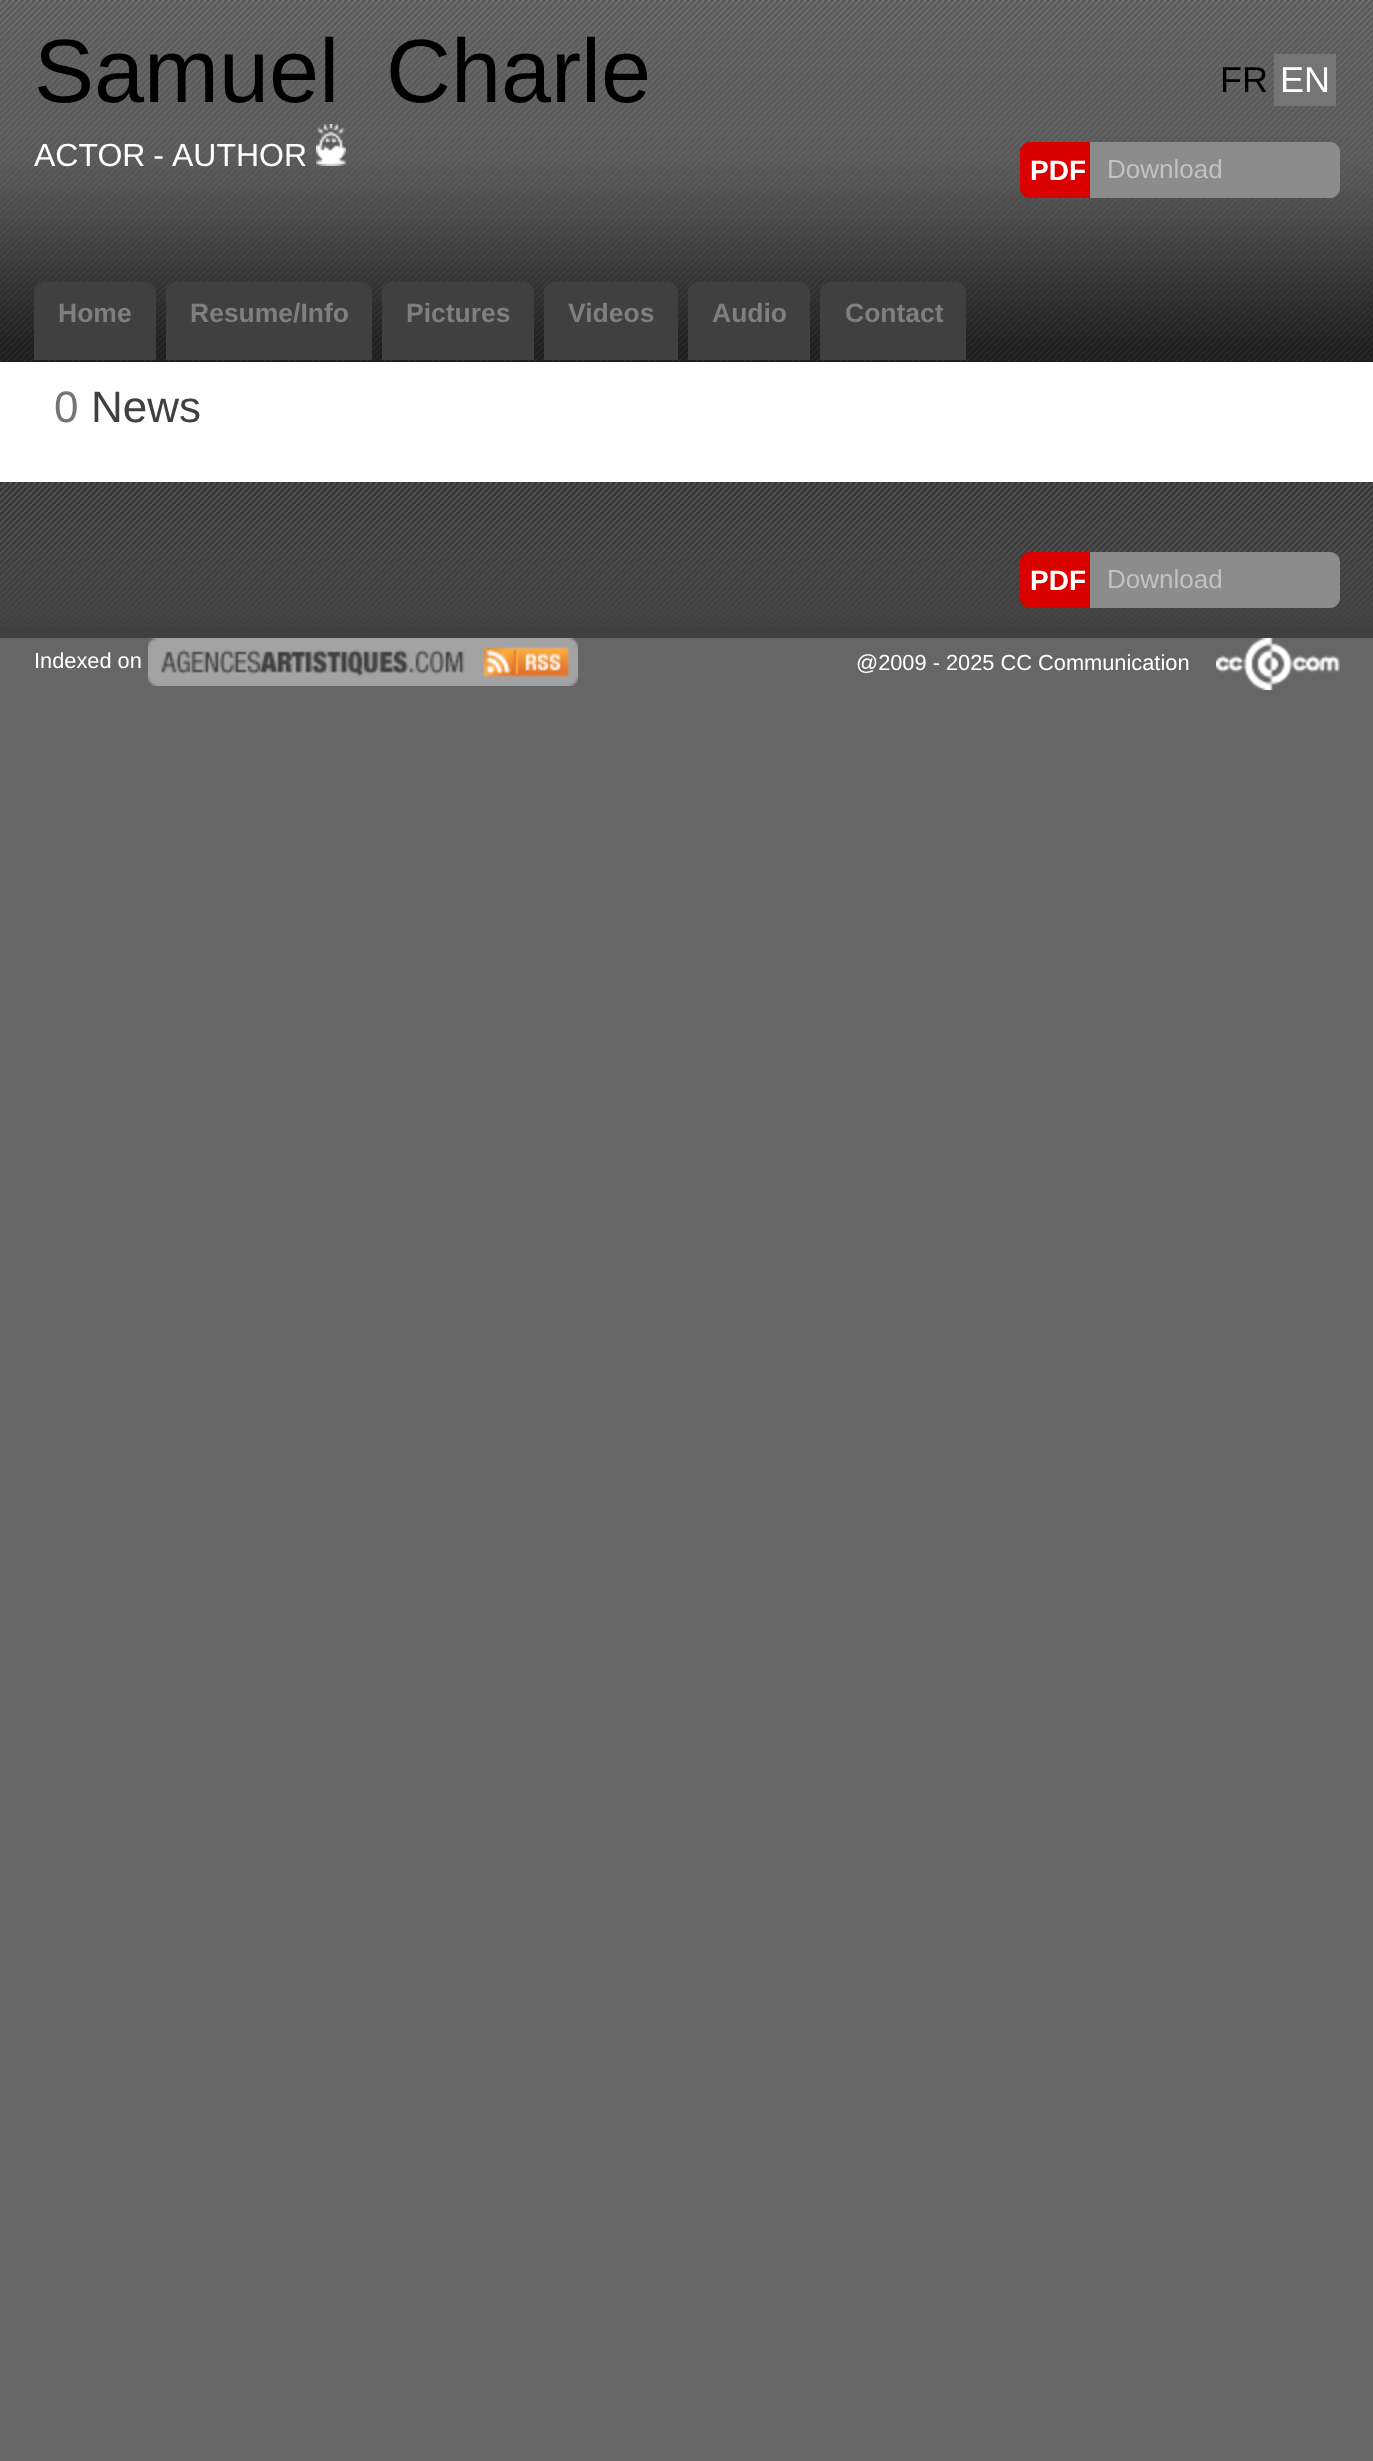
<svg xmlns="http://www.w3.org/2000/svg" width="1373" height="2461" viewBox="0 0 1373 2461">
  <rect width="100%" height="100%" fill="#666666"/>
  <image x="0" y="0" width="1373" height="362" href="img1.png"/>
  <text x="34" y="102" font-family="Liberation Sans" font-size="90" fill="#000000">Samuel</text>
  <text x="386" y="102" font-family="Liberation Sans" font-size="90" fill="#000000">Charle</text>
  <text x="34" y="166" word-spacing="-1" font-family="Liberation Sans" font-size="32" fill="#ffffff">ACTOR -</text>
  <text x="172" y="166" font-family="Liberation Sans" font-size="32" fill="#ffffff">AUTHOR</text>
  <image x="316" y="124" width="30" height="42" href="img2.png"/>
  <text x="1220" y="92" font-family="Liberation Sans" font-size="36" fill="#000000">FR</text>
  <rect x="1274" y="54" width="62" height="52" fill="#757575"/>
  <text x="1280" y="92" font-family="Liberation Sans" font-size="36" fill="#ffffff">EN</text>
  <path d="M1030 142H1090V198H1030C1024.5 198 1020 193.5 1020 188V152C1020 146.5 1024.5 142 1030 142Z" fill="#da0000"/>
  <text x="1030" y="180" font-family="Liberation Sans" font-size="28" font-weight="bold" fill="#ffffff">PDF</text>
  <path d="M1090 142H1330C1335.5 142 1340 146.5 1340 152V188C1340 193.5 1335.5 198 1330 198H1090Z" fill="#8c8c8c"/>
  <text x="1107" y="178" font-family="Liberation Sans" font-size="26" fill="#c2c2c2">Download</text>
  <path d="M44 282H146C151.5 282 156 286.5 156 292V360H34V292C34 286.5 38.5 282 44 282Z" fill="#404040"/>
  <text x="58" y="322" font-family="Liberation Sans" font-size="26.5" font-weight="bold" fill="#7f7f7f">Home</text>
  <path d="M176 282H362C367.5 282 372 286.5 372 292V360H166V292C166 286.5 170.5 282 176 282Z" fill="#404040"/>
  <text x="190" y="322" font-family="Liberation Sans" font-size="26.5" font-weight="bold" fill="#7f7f7f">Resume/Info</text>
  <path d="M392 282H524C529.5 282 534 286.5 534 292V360H382V292C382 286.5 386.5 282 392 282Z" fill="#404040"/>
  <text x="406" y="322" font-family="Liberation Sans" font-size="26.5" font-weight="bold" fill="#7f7f7f">Pictures</text>
  <path d="M554 282H668C673.5 282 678 286.5 678 292V360H544V292C544 286.5 548.5 282 554 282Z" fill="#404040"/>
  <text x="568" y="322" font-family="Liberation Sans" font-size="26.5" font-weight="bold" fill="#7f7f7f">Videos</text>
  <path d="M698 282H800C805.5 282 810 286.5 810 292V360H688V292C688 286.5 692.5 282 698 282Z" fill="#404040"/>
  <text x="712" y="322" font-family="Liberation Sans" font-size="26.5" font-weight="bold" fill="#7f7f7f">Audio</text>
  <path d="M830 282H956C961.5 282 966 286.5 966 292V360H820V292C820 286.5 824.5 282 830 282Z" fill="#404040"/>
  <text x="845" y="322" font-family="Liberation Sans" font-size="26.5" font-weight="bold" fill="#7f7f7f">Contact</text>
  <rect x="0" y="362" width="1373" height="120" fill="#ffffff"/>
  <text x="54" y="422" font-family="Liberation Sans" font-size="44" fill="#757575">0</text>
  <text x="91" y="422" font-family="Liberation Sans" font-size="44" fill="#404040">News</text>
  <rect x="0" y="626" width="1373" height="12" fill="#404040"/>
  <image x="0" y="482" width="1373" height="144" href="img3.png"/>
  <path d="M1030 552H1090V608H1030C1024.5 608 1020 603.5 1020 598V562C1020 556.5 1024.5 552 1030 552Z" fill="#da0000"/>
  <text x="1030" y="590" font-family="Liberation Sans" font-size="28" font-weight="bold" fill="#ffffff">PDF</text>
  <path d="M1090 552H1330C1335.5 552 1340 556.5 1340 562V598C1340 603.5 1335.5 608 1330 608H1090Z" fill="#8c8c8c"/>
  <text x="1107" y="588" font-family="Liberation Sans" font-size="26" fill="#c2c2c2">Download</text>
  <text x="34" y="668" font-family="Liberation Sans" font-size="21.8" fill="#ffffff">Indexed on</text>
  <image x="148" y="638" width="430" height="48" href="img4.png"/>
  <text x="856" y="670" font-family="Liberation Sans" font-size="21.8" fill="#ffffff">@2009 - 2025 CC Communication</text>
  <image x="1216" y="638" width="124" height="52" href="img5.png"/>
</svg>
